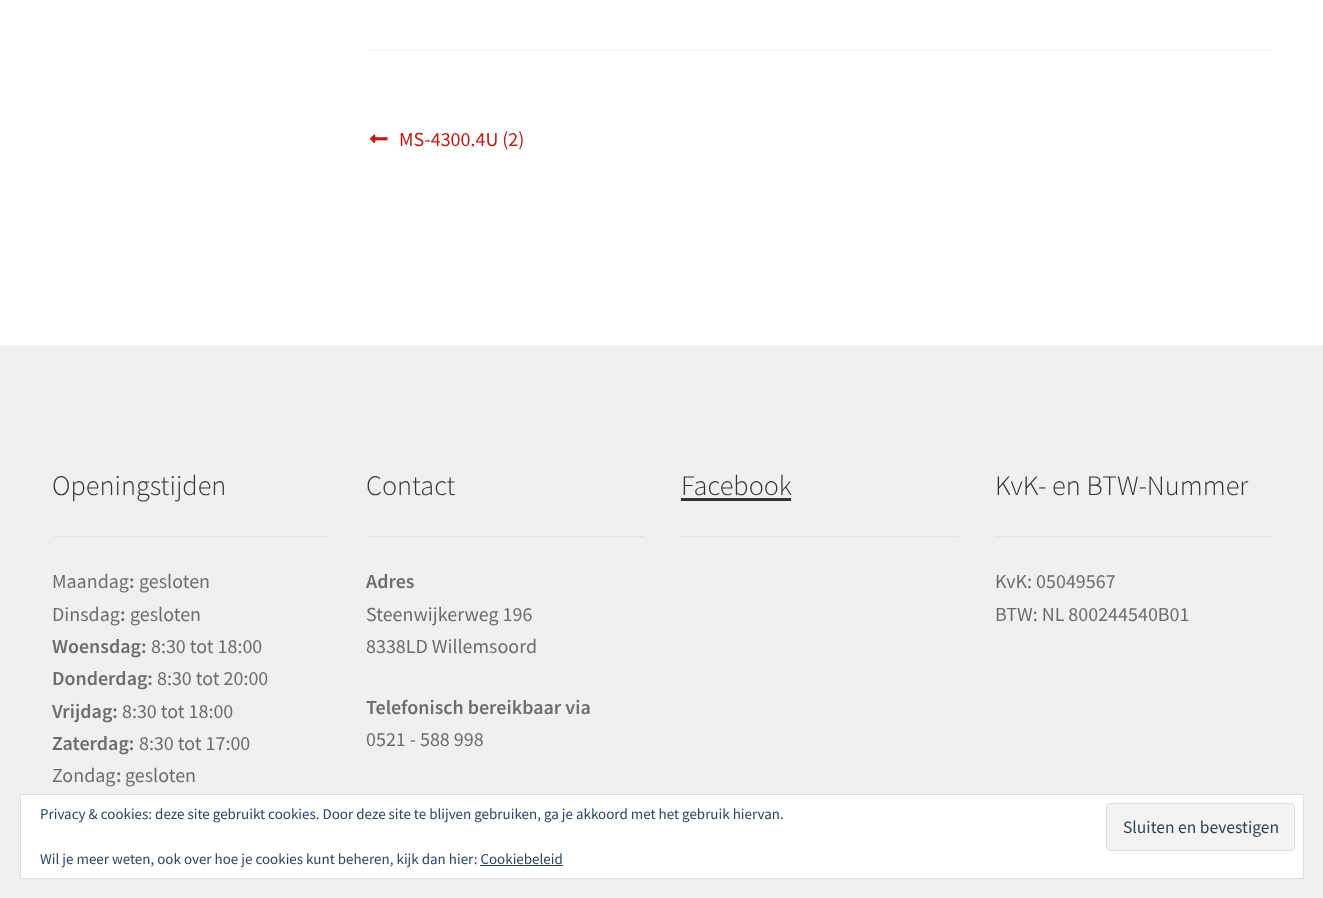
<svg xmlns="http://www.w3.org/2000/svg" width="1323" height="898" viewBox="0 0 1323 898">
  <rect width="100%" height="100%" fill="#ffffff"/>
  <rect x="370" y="50" width="901" height="1" fill="#f2f2f2"/>
  <image x="370" y="134" width="18" height="9" href="img1.png"/>
  <text x="399" y="146" font-family="Source Sans Pro" font-size="20" fill="#c41814">MS-4300.4U (2)</text>
  <rect x="0" y="345" width="1323" height="553" fill="#f0f0f0"/>
  <rect x="53" y="536" width="276" height="1" fill="#e4e4e4"/>
  <text x="52" y="495" font-family="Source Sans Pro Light" font-size="28.25" font-weight="300" fill="#333333">Openingstijden</text>
  <text x="52" y="588" font-family="Source Sans Pro" font-size="20" fill="#6d6d6d">Maandag</text>
  <text x="129" y="588" font-family="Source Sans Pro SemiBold" font-size="20" font-weight="600" fill="#6d6d6d">:</text>
  <text x="139" y="588" font-family="Source Sans Pro" font-size="20" fill="#6d6d6d">gesloten</text>
  <text x="52" y="621" font-family="Source Sans Pro" font-size="20" fill="#6d6d6d">Dinsdag</text>
  <text x="120" y="621" font-family="Source Sans Pro SemiBold" font-size="20" font-weight="600" fill="#6d6d6d">:</text>
  <text x="130" y="621" font-family="Source Sans Pro" font-size="20" fill="#6d6d6d">gesloten</text>
  <text x="52" y="653" font-family="Source Sans Pro SemiBold" font-size="20" font-weight="600" fill="#6d6d6d">Woensdag:</text>
  <text x="151" y="653" font-family="Source Sans Pro" font-size="20" fill="#6d6d6d">8:30 tot 18:00</text>
  <text x="52" y="685" font-family="Source Sans Pro SemiBold" font-size="20" font-weight="600" fill="#6d6d6d">Donderdag:</text>
  <text x="157" y="685" font-family="Source Sans Pro" font-size="20" fill="#6d6d6d">8:30 tot 20:00</text>
  <text x="52" y="718" font-family="Source Sans Pro SemiBold" font-size="20" font-weight="600" fill="#6d6d6d">Vrijdag:</text>
  <text x="122" y="718" font-family="Source Sans Pro" font-size="20" fill="#6d6d6d">8:30 tot 18:00</text>
  <text x="52" y="750" font-family="Source Sans Pro SemiBold" font-size="20" font-weight="600" fill="#6d6d6d">Zaterdag:</text>
  <text x="139" y="750" font-family="Source Sans Pro" font-size="20" fill="#6d6d6d">8:30 tot 17:00</text>
  <text x="52" y="782" font-family="Source Sans Pro" font-size="20" fill="#6d6d6d">Zondag</text>
  <text x="116" y="782" font-family="Source Sans Pro SemiBold" font-size="20" font-weight="600" fill="#6d6d6d">:</text>
  <text x="125" y="782" font-family="Source Sans Pro" font-size="20" fill="#6d6d6d">gesloten</text>
  <rect x="366" y="536" width="278" height="1" fill="#e4e4e4"/>
  <text x="366" y="495" font-family="Source Sans Pro Light" font-size="28.25" font-weight="300" fill="#333333">Contact</text>
  <text x="366" y="588" font-family="Source Sans Pro SemiBold" font-size="20" font-weight="600" fill="#6d6d6d">Adres</text>
  <text x="366" y="621" font-family="Source Sans Pro" font-size="20" fill="#6d6d6d">Steenwijkerweg 196</text>
  <text x="366" y="653" font-family="Source Sans Pro" font-size="20" fill="#6d6d6d">8338LD Willemsoord</text>
  <text x="366" y="714" font-family="Source Sans Pro SemiBold" font-size="20" font-weight="600" fill="#6d6d6d">Telefonisch bereikbaar via</text>
  <text x="366" y="746" font-family="Source Sans Pro" font-size="20" fill="#6d6d6d">0521 - 588 998</text>
  <rect x="681" y="536" width="277" height="1" fill="#e4e4e4"/>
  <text x="681" y="495" font-family="Source Sans Pro Light" font-size="28.25" font-weight="300" fill="#333333">Facebook</text>
  <rect x="681" y="498" width="110" height="3" fill="#333333"/>
  <rect x="995" y="536" width="276" height="1" fill="#e4e4e4"/>
  <text x="995" y="495" font-family="Source Sans Pro Light" font-size="28.25" font-weight="300" fill="#333333">KvK- en BTW-Nummer</text>
  <text x="995" y="588" font-family="Source Sans Pro" font-size="20" fill="#6d6d6d">KvK: 05049567</text>
  <text x="995" y="621" font-family="Source Sans Pro" font-size="20" fill="#6d6d6d">BTW: NL 800244540B01</text>
  <rect x="20.5" y="794.5" width="1283" height="84" fill="#ffffff" stroke="#dedede"/>
  <text x="40" y="819" font-family="Source Sans Pro" font-size="15" fill="#2e4467">Privacy &amp; cookies: deze site gebruikt cookies. Door deze site te blijven gebruiken, ga je akkoord met het gebruik hiervan.</text>
  <rect x="1106.5" y="803.5" width="188" height="47" rx="3.5" fill="#f3f3f3" stroke="#dedede"/>
  <text x="1123" y="833" font-family="Source Sans Pro" font-size="17.5" fill="#2e4453">Sluiten en bevestigen</text>
  <text x="40" y="864" font-family="Source Sans Pro" font-size="15" fill="#2e4467">Wil je meer weten, ook over hoe je cookies kunt beheren, kijk dan hier: Cookiebeleid</text>
  <rect x="480" y="865" width="83" height="1" fill="#2e4467"/>
</svg>
